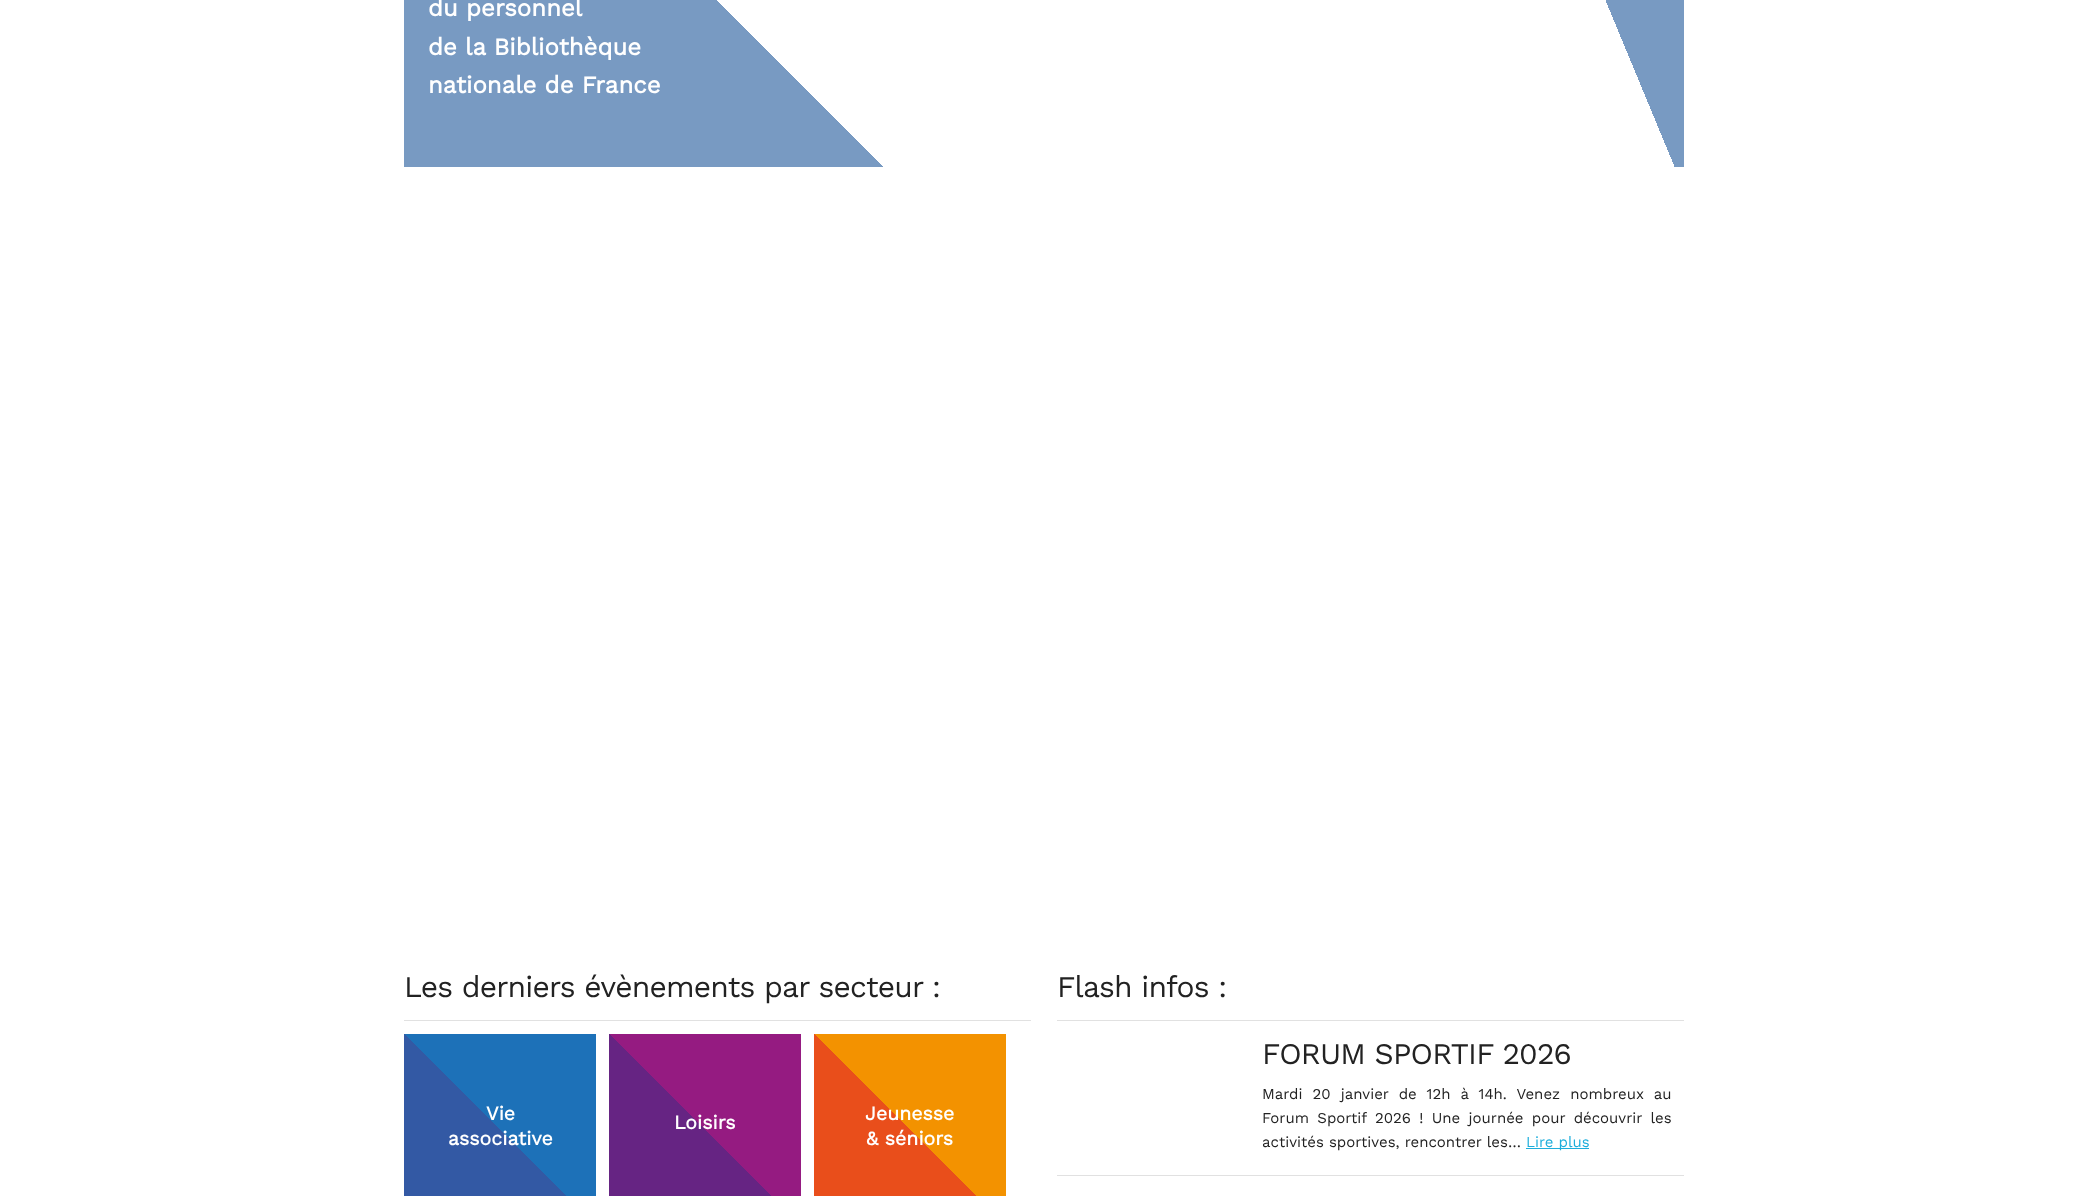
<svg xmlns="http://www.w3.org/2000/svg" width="2088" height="1196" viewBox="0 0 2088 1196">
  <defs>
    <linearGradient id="g1" gradientUnits="userSpaceOnUse" x1="404" y1="167" x2="884" y2="-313"><stop offset="0.5" stop-color="#789ac2"/><stop offset="0.5" stop-color="#ffffff"/></linearGradient>
    <linearGradient id="g2" gradientUnits="userSpaceOnUse" x1="1397" y1="0.7" x2="1753" y2="-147"><stop offset="0.5" stop-color="#ffffff"/><stop offset="0.5" stop-color="#789ac2"/></linearGradient>
    <linearGradient id="g3" gradientUnits="userSpaceOnUse" x1="596" y1="1034" x2="404" y2="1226"><stop offset="0.5" stop-color="#1d71b8"/><stop offset="0.5" stop-color="#3359a4"/></linearGradient>
    <linearGradient id="g4" gradientUnits="userSpaceOnUse" x1="801" y1="1034" x2="609" y2="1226"><stop offset="0.5" stop-color="#951b81"/><stop offset="0.5" stop-color="#662483"/></linearGradient>
    <linearGradient id="g5" gradientUnits="userSpaceOnUse" x1="1006" y1="1034" x2="814" y2="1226"><stop offset="0.5" stop-color="#f39200"/><stop offset="0.5" stop-color="#e94e1b"/></linearGradient>
  </defs>
  <rect width="100%" height="100%" fill="#ffffff"/>
  <rect x="404" y="0" width="480" height="167" fill="url(#g1)"/>
  <text x="428" y="16" font-family="Work Sans" font-size="24" font-weight="bold" fill="#ffffff">du personnel</text>
  <text x="428" y="55" font-family="Work Sans" font-size="24" font-weight="bold" fill="#ffffff">de la Bibliothèque</text>
  <text x="428" y="93" font-family="Work Sans" font-size="24" font-weight="bold" fill="#ffffff">nationale de France</text>
  <rect x="1606" y="0" width="78" height="167" fill="url(#g2)"/>
  <text x="404" y="997" font-family="Work Sans" font-size="30" letter-spacing="-0.8" fill="#222222">Les derniers évènements par secteur :</text>
  <rect x="404" y="1020" width="627" height="1" fill="#e1e1e1"/>
  <rect x="404" y="1034" width="192" height="162" fill="url(#g3)"/>
  <text x="486" y="1120" font-family="Work Sans" font-size="19.5" font-weight="bold" fill="#ffffff">Vie</text>
  <text x="448" y="1145" font-family="Work Sans" font-size="19.5" font-weight="bold" fill="#ffffff">associative</text>
  <rect x="609" y="1034" width="192" height="162" fill="url(#g4)"/>
  <text x="674" y="1129" font-family="Work Sans" font-size="19.5" font-weight="bold" fill="#ffffff">Loisirs</text>
  <rect x="814" y="1034" width="192" height="162" fill="url(#g5)"/>
  <text x="865" y="1120" font-family="Work Sans" font-size="19.5" font-weight="bold" fill="#ffffff">Jeunesse</text>
  <text x="866" y="1145" font-family="Work Sans" font-size="19.5" font-weight="bold" fill="#ffffff">&amp; séniors</text>
  <text x="1057" y="997" font-family="Work Sans" font-size="30" letter-spacing="-0.8" fill="#222222">Flash infos :</text>
  <rect x="1057" y="1020" width="627" height="1" fill="#e1e1e1"/>
  <text x="1262" y="1064" font-family="Work Sans" font-size="30" letter-spacing="-0.8" fill="#222222">FORUM SPORTIF 2026</text>
  <text x="1262" y="1099" word-spacing="5" font-family="Work Sans" font-size="15" fill="#222222">Mardi 20 janvier de 12h à 14h. Venez nombreux au</text>
  <text x="1262" y="1123" word-spacing="3.25" font-family="Work Sans" font-size="15" fill="#222222">Forum Sportif 2026 ! Une journée pour découvrir les</text>
  <text x="1262" y="1147" font-family="Work Sans" font-size="15" fill="#222222">activités sportives, rencontrer les…</text>
  <rect x="1526" y="1148" width="63" height="1" fill="#1eaedb"/>
  <text x="1526" y="1147" font-family="Work Sans" font-size="15" fill="#1eaedb">Lire plus</text>
  <rect x="1057" y="1175" width="627" height="1" fill="#e1e1e1"/>
</svg>
